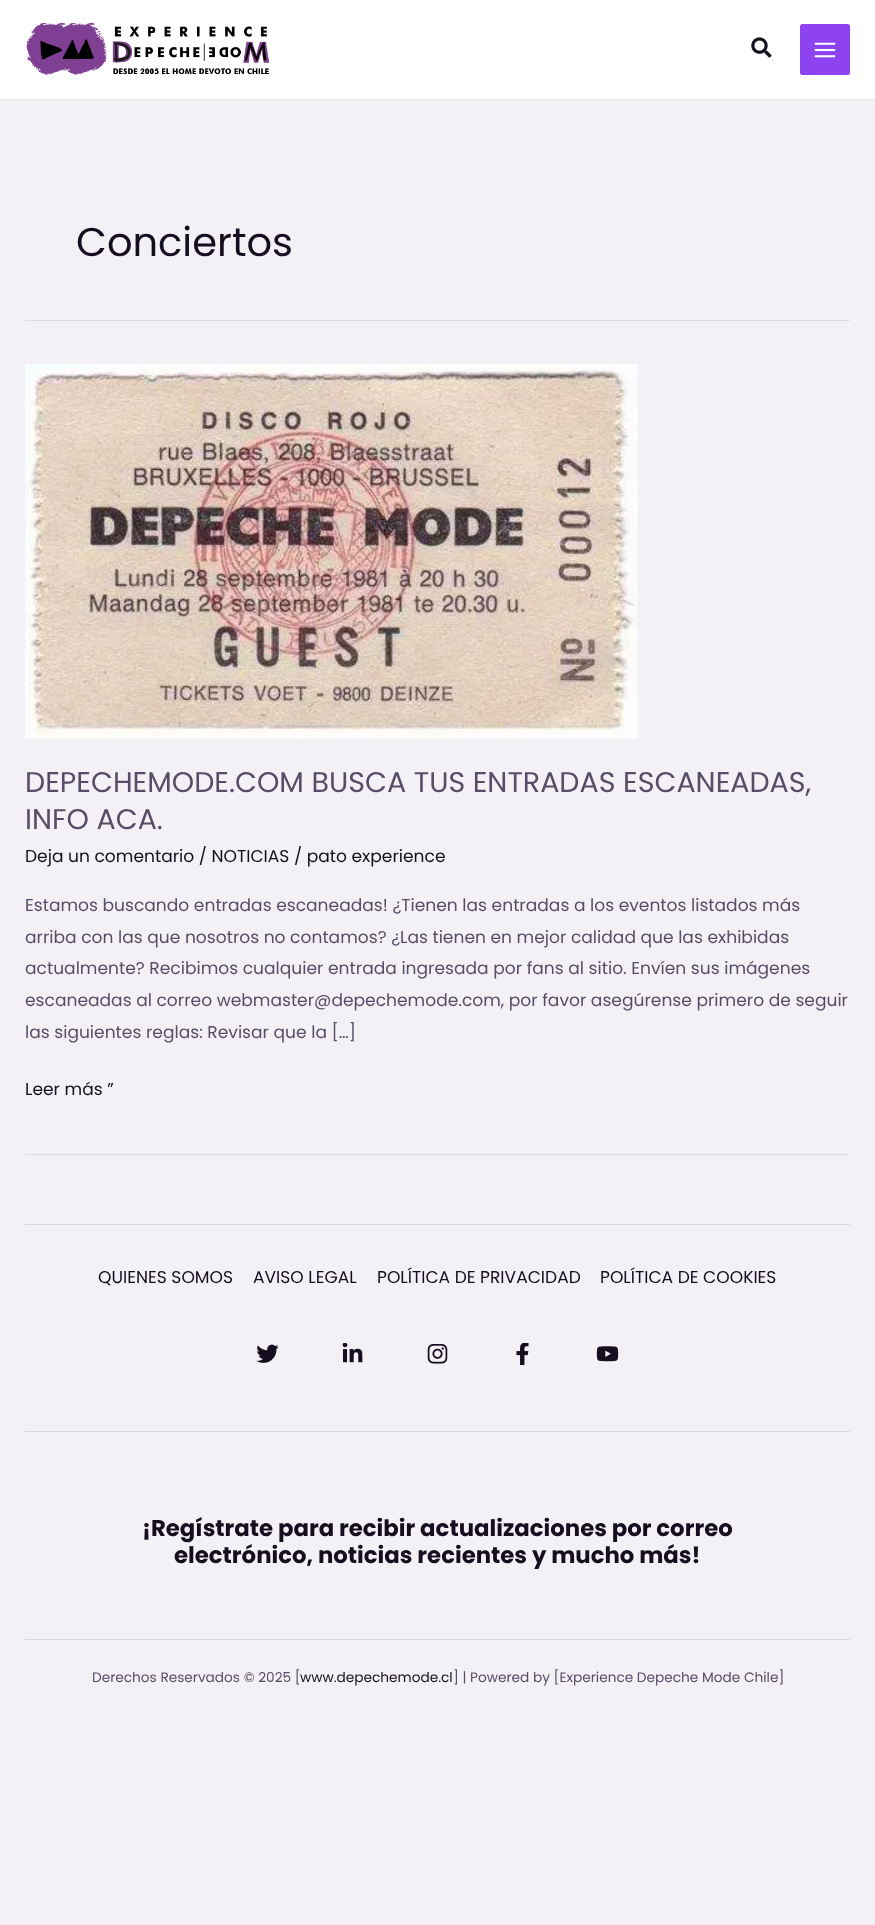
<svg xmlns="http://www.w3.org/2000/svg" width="875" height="1925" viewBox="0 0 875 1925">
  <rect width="100%" height="100%" fill="#f3f1f6"/>
  <rect x="0" y="0" width="875" height="99" fill="#ffffff"/>
  <rect x="0" y="99" width="875" height="1" fill="#eaeaea"/>
  <image x="26" y="22" width="244" height="53" href="img1.png"/>
  <image x="751" y="37" width="21" height="21" href="img2.png"/>
  <rect x="800" y="24" width="50" height="51" rx="2.5" fill="#8e43f0"/>
  <image x="814" y="42" width="22" height="16" href="img3.png"/>
  <rect x="25" y="320" width="825" height="1" fill="#dddddd"/>
  <text x="76" y="256" font-family="Poppins" font-size="40" fill="#150e1f">Conciertos</text>
  <rect x="25" y="1154" width="825" height="1" fill="#dddddd"/>
  <image x="25" y="364" width="613" height="375" href="img4.png"/>
  <text x="25" y="792" font-family="Poppins" font-size="28.5" fill="#584d66">DEPECHEMODE.COM BUSCA TUS ENTRADAS ESCANEADAS,</text>
  <text x="25" y="829" font-family="Poppins" font-size="28.5" fill="#584d66">INFO ACA.</text>
  <text x="25" y="862" font-family="Poppins" font-size="17.1" fill="#150e1f">Deja un comentario / NOTICIAS / pato experience</text>
  <text x="25" y="911" font-family="Poppins" font-size="17.1" fill="#584d66">Estamos buscando entradas escaneadas! ¿Tienen las entradas a los eventos listados más</text>
  <text x="25" y="943" font-family="Poppins" font-size="17.1" fill="#584d66">arriba con las que nosotros no contamos? ¿Las tienen en mejor calidad que las exhibidas</text>
  <text x="25" y="974" font-family="Poppins" font-size="17.1" fill="#584d66">actualmente? Recibimos cualquier entrada ingresada por fans al sitio. Envíen sus imágenes</text>
  <text x="25" y="1006" font-family="Poppins" font-size="17.1" fill="#584d66">escaneadas al correo webmaster@depechemode.com, por favor asegúrense primero de seguir</text>
  <text x="25" y="1038" font-family="Poppins" font-size="17.1" fill="#584d66">las siguientes reglas: Revisar que la […]</text>
  <text x="25" y="1095" font-family="Poppins" font-size="17.1" fill="#150e1f">Leer más ”</text>
  <rect x="25" y="1224" width="825" height="1" fill="#dbd9dd"/>
  <text x="98" y="1283" font-family="Poppins" font-size="17.1" fill="#150e1f">QUIENES SOMOS</text>
  <text x="253" y="1283" font-family="Poppins" font-size="17.1" fill="#150e1f">AVISO LEGAL</text>
  <text x="377" y="1283" font-family="Poppins" font-size="17.1" fill="#150e1f">POLÍTICA DE PRIVACIDAD</text>
  <text x="600" y="1283" font-family="Poppins" font-size="17.1" fill="#150e1f">POLÍTICA DE COOKIES</text>
  <image x="256" y="1344" width="23" height="19" href="img5.png"/>
  <image x="342" y="1343" width="21" height="20" href="img6.png"/>
  <image x="427" y="1344" width="21" height="20" href="img7.png"/>
  <image x="516" y="1343" width="13" height="22" href="img8.png"/>
  <image x="596" y="1346" width="23" height="16" href="img9.png"/>
  <rect x="25" y="1431" width="825" height="1" fill="#dbd9dd"/>
  <text x="142" y="1536" font-family="Poppins" font-size="22.8" font-weight="bold" fill="#150e1f">¡Regístrate para recibir actualizaciones por correo</text>
  <text x="174" y="1563" font-family="Poppins" font-size="22.8" font-weight="bold" fill="#150e1f">electrónico, noticias recientes y mucho más!</text>
  <rect x="25" y="1639" width="825" height="1" fill="#dbd9dd"/>
  <text x="92" y="1682" font-family="Poppins" font-size="13.7" fill="#584d66">Derechos Reservados © 2025 [</text>
  <text x="300" y="1682" font-family="Poppins" font-size="13.7" fill="#150e1f">www.depechemode.cl</text>
  <text x="453" y="1682" font-family="Poppins" font-size="13.7" fill="#584d66">] | Powered by [Experience Depeche Mode Chile]</text>
</svg>
